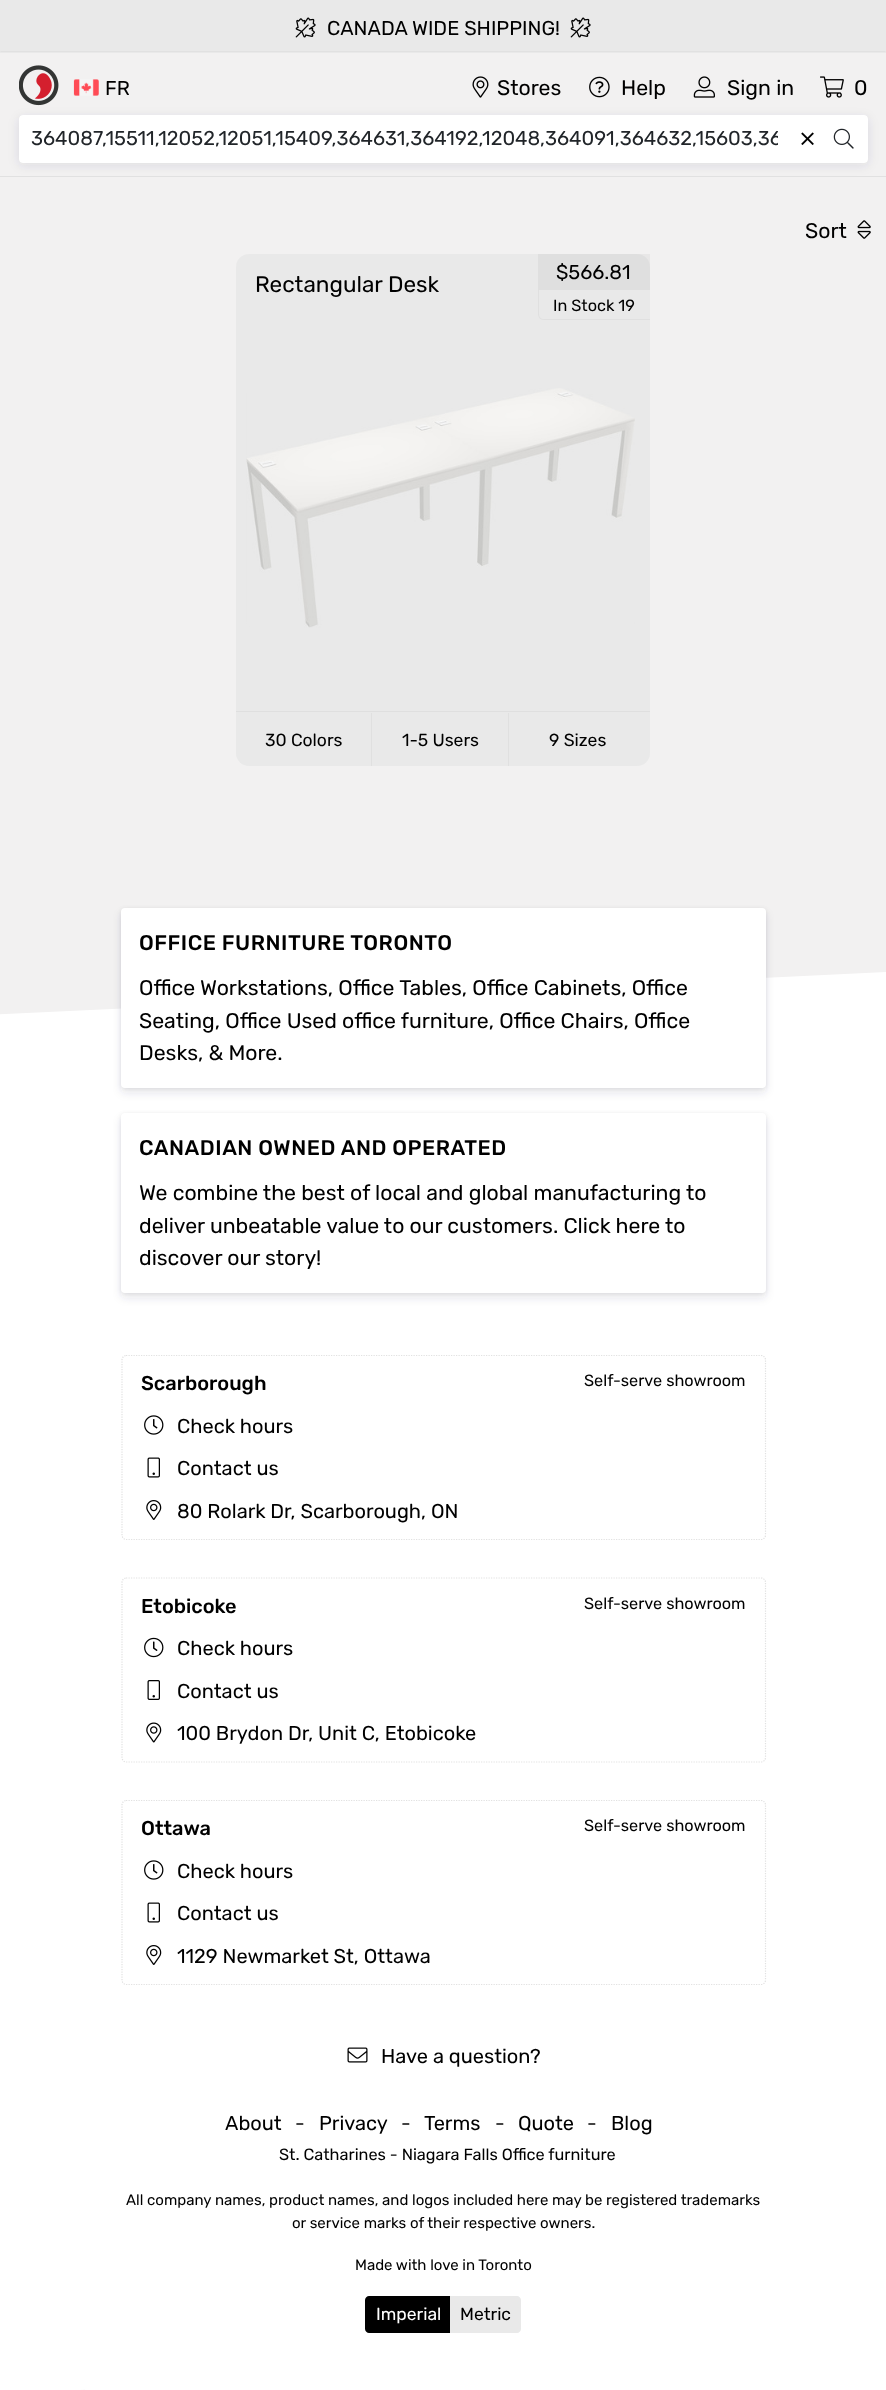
<svg xmlns="http://www.w3.org/2000/svg" width="886" height="2390" viewBox="0 0 886 2390">
  <defs>
    <filter id="blur1" x="-50%" y="-200%" width="200%" height="500%"><feGaussianBlur stdDeviation="0.5"/></filter>
    <filter id="blur2" x="-50%" y="-200%" width="200%" height="500%"><feGaussianBlur stdDeviation="5.5"/></filter>
    <clipPath id="clip1"><rect x="31" y="124" width="747" height="30"/></clipPath>
    <filter id="blur3" x="-50%" y="-200%" width="200%" height="500%"><feGaussianBlur stdDeviation="2"/></filter>
    <filter id="blur4" x="-50%" y="-200%" width="200%" height="500%"><feGaussianBlur stdDeviation="4"/></filter>
  </defs>
  <rect width="100%" height="100%" fill="#f2f1f1"/>
  <rect x="0" y="0" width="886" height="53" fill="#e9e9e9"/>
  <path d="M886 52H0L1 51H885Z" fill="#e1e1e1"/>
  <image x="295" y="17" width="21" height="21" href="img1.png"/>
  <text x="327" y="35" font-family="Rubik" font-size="20" fill="#000000">CANADA WIDE SHIPPING!</text>
  <image x="570" y="17" width="21" height="21" href="img1.png"/>
  <rect x="0" y="176" width="886" height="1" fill="#e1e1e1"/>
  <image x="19" y="65" width="40" height="41" href="img2.png"/>
  <image x="73" y="79" width="26" height="17" href="img3.png"/>
  <text x="105" y="95" font-family="Rubik" font-size="20" fill="#000000">FR</text>
  <image x="472" y="76" width="17" height="22" href="img4.png"/>
  <text x="497" y="95" font-family="Rubik" font-size="21.25" fill="#000000">Stores</text>
  <image x="589" y="76" width="21" height="22" href="img5.png"/>
  <text x="621" y="95" font-family="Rubik" font-size="21.25" fill="#000000">Help</text>
  <image x="693" y="76" width="22" height="22" href="img6.png"/>
  <text x="727" y="95" font-family="Rubik" font-size="21.25" fill="#000000">Sign in</text>
  <image x="820" y="76" width="24" height="22" href="img7.png"/>
  <text x="854" y="95" font-family="Rubik" font-size="21.25" fill="#000000">0</text>
  <rect x="19" y="115" width="849" height="48" rx="4" fill="#000000" fill-opacity="0.08" filter="url(#blur1)"/>
  <rect x="19" y="118" width="849" height="47" rx="4" fill="#32325d" fill-opacity="0.11" filter="url(#blur2)"/>
  <rect x="19" y="115" width="849" height="48" rx="4" fill="#ffffff"/>
  <g clip-path="url(#clip1)">
    <text x="31" y="145" font-family="Rubik" font-size="20" fill="#212529">364087,15511,12052,12051,15409,364631,364192,12048,364091,364632,15603,36</text>
  </g>
  <image x="801" y="132" width="13" height="13" href="img8.png"/>
  <image x="833" y="128" width="21" height="21" href="img9.png"/>
  <text x="805" y="238" font-family="Rubik" font-size="21.25" fill="#000000">Sort</text>
  <image x="857" y="220" width="14" height="19" href="img10.png"/>
  <rect x="236" y="254" width="414" height="512" rx="13" fill="#e9e9e9"/>
  <rect x="538" y="254" width="112" height="36" fill="#000000" fill-opacity="0.04"/>
  <text x="556" y="279" font-family="Rubik" font-size="20" fill="#000000">$566.81</text>
  <text x="255" y="292" font-family="Rubik" font-size="22.5" fill="#000000">Rectangular Desk</text>
  <path d="M538 290H650V320H544C540 320 538 317 538 314ZM539 290H650V319H544C541 319 539 317 539 314Z" fill="#e0e0e0" fill-rule="evenodd"/>
  <text x="553" y="311" font-family="Rubik" font-size="16.25" fill="#000000">In Stock 19</text>
  <image x="246" y="388" width="389" height="240" href="img11.png"/>
  <rect x="236" y="711" width="414" height="1" fill="#dfdfdf"/>
  <rect x="371" y="713" width="1" height="53" fill="#e0e0e0"/>
  <text x="265" y="746" font-family="Rubik" font-size="17.5" fill="#000000">30 Colors</text>
  <rect x="508" y="713" width="1" height="53" fill="#e0e0e0"/>
  <text x="402" y="746" font-family="Rubik" font-size="17.5" fill="#000000">1-5 Users</text>
  <text x="549" y="746" font-family="Rubik" font-size="17.5" fill="#000000">9 Sizes</text>
  <path d="M-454 1036L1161 959L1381 2328L-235 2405Z" fill="#ffffff"/>
  <rect x="121" y="909" width="645" height="180" rx="4" fill="#000000" fill-opacity="0.08" filter="url(#blur3)"/>
  <rect x="121" y="913" width="645" height="180" rx="4" fill="#32325d" fill-opacity="0.11" filter="url(#blur4)"/>
  <rect x="121" y="908" width="645" height="180" rx="4" fill="#ffffff"/>
  <text x="139" y="950" font-family="Rubik" font-size="21.25" font-weight="500" letter-spacing="0.5" fill="#000000">OFFICE FURNITURE TORONTO</text>
  <text x="139" y="995" font-family="Rubik" font-size="21.25" fill="#000000">Office Workstations, Office Tables, Office Cabinets, Office</text>
  <text x="139" y="1028" font-family="Rubik" font-size="21.25" fill="#000000">Seating, Office Used office furniture, Office Chairs, Office</text>
  <text x="139" y="1060" font-family="Rubik" font-size="21.25" fill="#000000">Desks, &amp; More.</text>
  <rect x="121" y="1114" width="645" height="180" rx="4" fill="#000000" fill-opacity="0.08" filter="url(#blur3)"/>
  <rect x="121" y="1118" width="645" height="180" rx="4" fill="#32325d" fill-opacity="0.11" filter="url(#blur4)"/>
  <rect x="121" y="1113" width="645" height="180" rx="4" fill="#ffffff"/>
  <text x="139" y="1155" font-family="Rubik" font-size="21.25" font-weight="500" letter-spacing="0.5" fill="#000000">CANADIAN OWNED AND OPERATED</text>
  <text x="139" y="1200" font-family="Rubik" font-size="21.25" fill="#000000">We combine the best of local and global manufacturing to</text>
  <text x="139" y="1233" font-family="Rubik" font-size="21.25" fill="#000000">deliver unbeatable value to our customers. Click here to</text>
  <text x="139" y="1265" font-family="Rubik" font-size="21.25" fill="#000000">discover our story!</text>
  <path d="M126 1355.5H761C763.5 1355.5 765.5 1357.5 765.5 1360V1535C765.5 1537.5 763.5 1539.5 761 1539.5H126C124 1539.5 122 1537.5 122 1535V1360C122 1357.5 124 1355.5 126 1355.5Z" fill="none" stroke="#e1e1e1" stroke-width="1.2" stroke-dasharray="1.25 1.25"/>
  <text x="141" y="1390" font-family="Rubik" font-size="20" font-weight="500" fill="#000000">Scarborough</text>
  <text x="584" y="1386" font-family="Rubik" font-size="16.25" fill="#000000">Self-serve showroom</text>
  <image x="144" y="1415" width="20" height="20" href="img12.png"/>
  <text x="177" y="1433" font-family="Rubik" font-size="20" fill="#000000">Check hours</text>
  <image x="147" y="1457" width="13" height="21" href="img13.png"/>
  <text x="177" y="1475" font-family="Rubik" font-size="20" fill="#000000">Contact us</text>
  <image x="146" y="1500" width="16" height="20" href="img14.png"/>
  <text x="177" y="1518" font-family="Rubik" font-size="20" fill="#000000">80 Rolark Dr, Scarborough, ON</text>
  <path d="M126 1578H761C763.5 1578 765.5 1580 765.5 1582.5V1757.5C765.5 1760 763.5 1762 761 1762H126C124 1762 122 1760 122 1757.5V1582.5C122 1580 124 1578 126 1578Z" fill="none" stroke="#e1e1e1" stroke-width="1.2" stroke-dasharray="1.25 1.25"/>
  <text x="141" y="1613" font-family="Rubik" font-size="20" font-weight="500" fill="#000000">Etobicoke</text>
  <text x="584" y="1609" font-family="Rubik" font-size="16.25" fill="#000000">Self-serve showroom</text>
  <image x="144" y="1637" width="20" height="21" href="img15.png"/>
  <text x="177" y="1655" font-family="Rubik" font-size="20" fill="#000000">Check hours</text>
  <image x="147" y="1680" width="13" height="20" href="img16.png"/>
  <text x="177" y="1698" font-family="Rubik" font-size="20" fill="#000000">Contact us</text>
  <image x="146" y="1722" width="16" height="21" href="img17.png"/>
  <text x="177" y="1740" font-family="Rubik" font-size="20" fill="#000000">100 Brydon Dr, Unit C, Etobicoke</text>
  <path d="M126 1800.5H761C763.5 1800.5 765.5 1802.5 765.5 1805V1980C765.5 1982.5 763.5 1984.5 761 1984.5H126C124 1984.5 122 1982.5 122 1980V1805C122 1802.5 124 1800.5 126 1800.5Z" fill="none" stroke="#e1e1e1" stroke-width="1.2" stroke-dasharray="1.25 1.25"/>
  <text x="141" y="1835" font-family="Rubik" font-size="20" font-weight="500" fill="#000000">Ottawa</text>
  <text x="584" y="1831" font-family="Rubik" font-size="16.25" fill="#000000">Self-serve showroom</text>
  <image x="144" y="1860" width="20" height="20" href="img12.png"/>
  <text x="177" y="1878" font-family="Rubik" font-size="20" fill="#000000">Check hours</text>
  <image x="147" y="1902" width="13" height="21" href="img13.png"/>
  <text x="177" y="1920" font-family="Rubik" font-size="20" fill="#000000">Contact us</text>
  <image x="146" y="1945" width="16" height="20" href="img14.png"/>
  <text x="177" y="1963" font-family="Rubik" font-size="20" fill="#000000">1129 Newmarket St, Ottawa</text>
  <image x="347" y="2047" width="21" height="16" href="img18.png"/>
  <text x="381" y="2063" font-family="Rubik" font-size="20" fill="#000000">Have a question?</text>
  <text x="225" y="2130" font-family="Rubik" font-size="20" fill="#000000">About</text>
  <text x="295" y="2130" font-family="Rubik" font-size="20" fill="#000000">-</text>
  <text x="319" y="2130" font-family="Rubik" font-size="20" fill="#000000">Privacy</text>
  <text x="401" y="2130" font-family="Rubik" font-size="20" fill="#000000">-</text>
  <text x="424" y="2130" font-family="Rubik" font-size="20" fill="#000000">Terms</text>
  <text x="495" y="2130" font-family="Rubik" font-size="20" fill="#000000">-</text>
  <text x="518" y="2130" font-family="Rubik" font-size="20" fill="#000000">Quote</text>
  <text x="587" y="2130" font-family="Rubik" font-size="20" fill="#000000">-</text>
  <text x="611" y="2130" font-family="Rubik" font-size="20" fill="#000000">Blog</text>
  <text x="279" y="2160" font-family="Rubik" font-size="16.25" fill="#000000">St. Catharines - Niagara Falls Office furniture</text>
  <text x="126" y="2205" font-family="Rubik" font-size="15" fill="#000000">All company names, product names, and logos included here may be registered trademarks</text>
  <text x="292" y="2228" font-family="Rubik" font-size="15" fill="#000000">or service marks of their respective owners.</text>
  <text x="355" y="2270" font-family="Rubik" font-size="15" fill="#000000">Made with love in Toronto</text>
  <path d="M369 2296H451V2333H369C367 2333 365 2331 365 2329V2300C365 2298 367 2296 369 2296Z" fill="#000000"/>
  <text x="376" y="2320" font-family="Rubik" font-size="17.5" fill="#ffffff">Imperial</text>
  <path d="M450 2296H517C519 2296 521 2298 521 2300V2329C521 2331 519 2333 517 2333H450Z" fill="#e9e9e9"/>
  <text x="460" y="2320" font-family="Rubik" font-size="17.5" fill="#000000">Metric</text>
  <rect x="85" y="2351" width="801" height="39" fill="#ffffff"/>
</svg>
